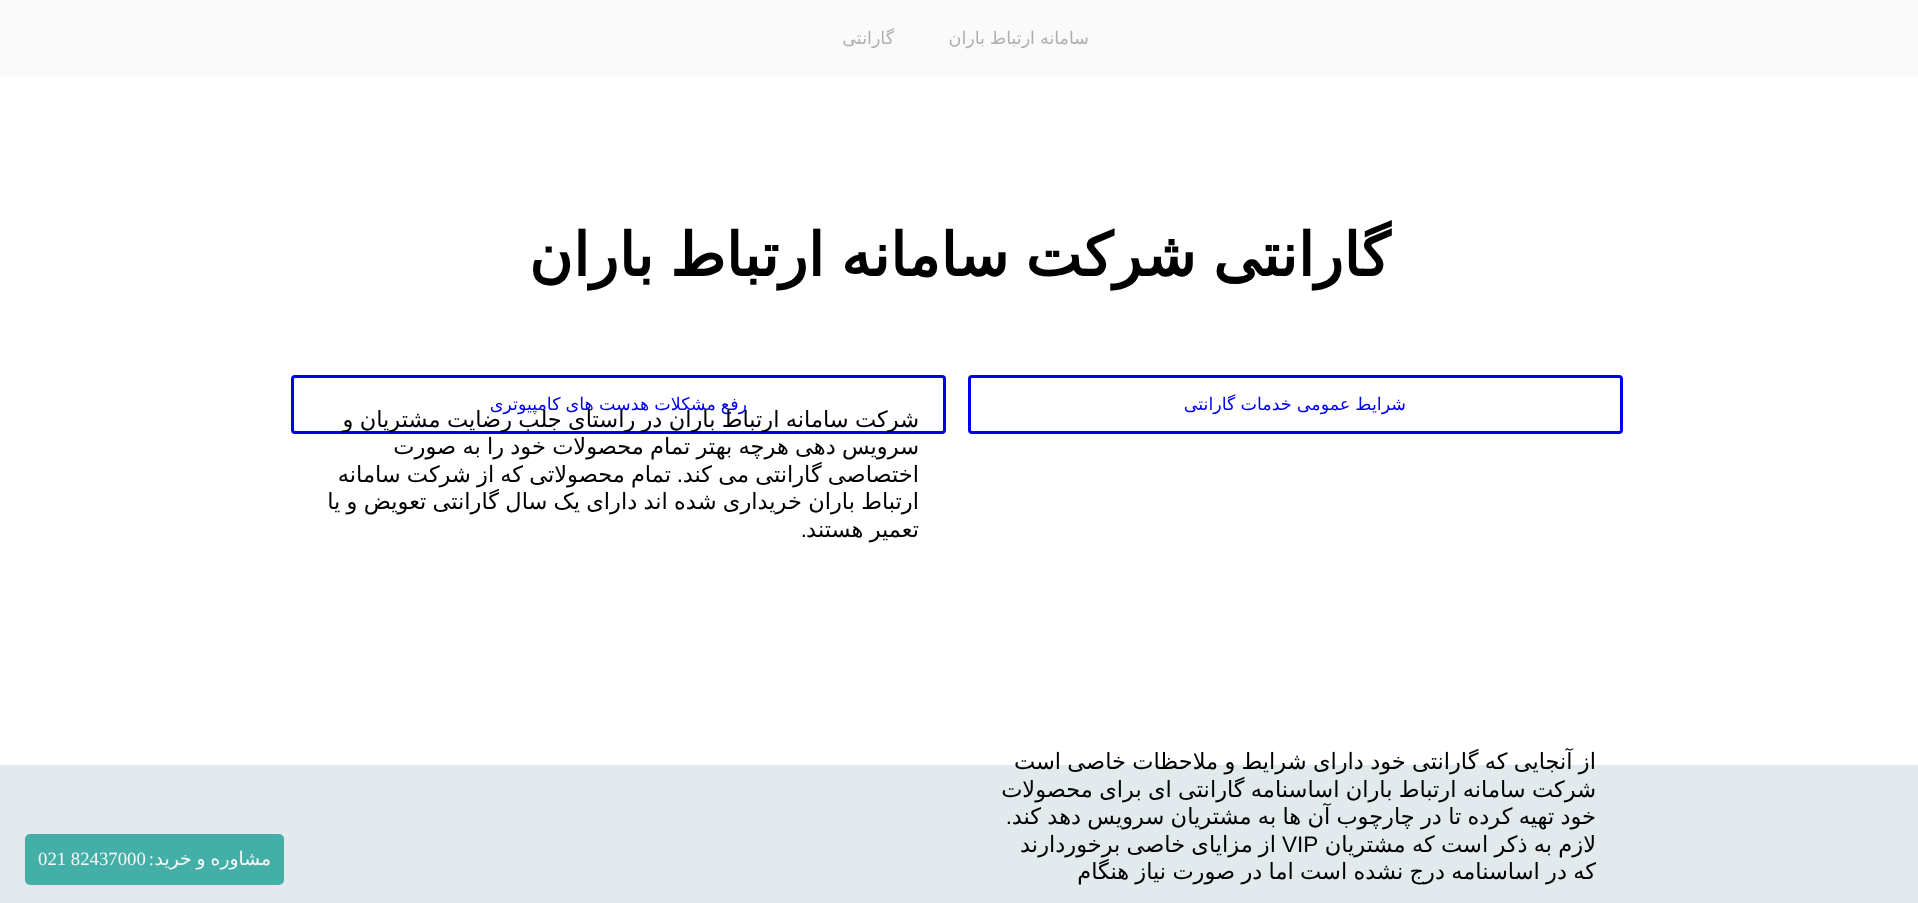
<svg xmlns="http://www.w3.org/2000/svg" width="1918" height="903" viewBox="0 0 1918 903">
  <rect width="100%" height="100%" fill="#ffffff"/>
  <rect x="0" y="0" width="1918" height="76" fill="#fafafa"/>
  <text x="1089" y="44" word-spacing="-0.5" font-family="DejaVu Sans" font-size="17.5" direction="rtl" fill="#afafaf">سامانه ارتباط باران</text>
  <text x="894" y="44" font-family="DejaVu Sans" font-size="17.5" direction="rtl" fill="#afafaf">گارانتی</text>
  <text x="1390" y="276" word-spacing="-2.5" font-family="DejaVu Sans" font-size="60" font-weight="bold" direction="rtl" fill="#000000">گارانتی شرکت سامانه ارتباط باران</text>
  <rect x="969.5" y="376.5" width="652" height="56" rx="2.5" fill="none" stroke="#0000ee" stroke-width="3"/>
  <text x="1406" y="410" word-spacing="-0.5" font-family="DejaVu Sans" font-size="17.5" direction="rtl" fill="#0000ee">شرایط عمومی خدمات گارانتی</text>
  <rect x="292.5" y="376.5" width="652" height="56" rx="2.5" fill="none" stroke="#0000ee" stroke-width="3"/>
  <text x="747" y="410" word-spacing="-0.5" font-family="DejaVu Sans" font-size="17.5" direction="rtl" fill="#0000ee">رفع مشکلات هدست های کامپیوتری</text>
  <text x="919" y="427" word-spacing="-0.9" font-family="DejaVu Sans" font-size="22.5" direction="rtl" fill="#000000">شرکت سامانه ارتباط باران در راستای جلب رضایت مشتریان و</text>
  <text x="919" y="454" word-spacing="-0.9" font-family="DejaVu Sans" font-size="22.5" direction="rtl" fill="#000000">سرویس دهی هرچه بهتر تمام محصولات خود را به صورت</text>
  <text x="919" y="482" word-spacing="-1" font-family="DejaVu Sans" font-size="22.5" direction="rtl" fill="#000000">اختصاصی گارانتی می کند</text>
  <text x="683" y="482" font-family="Liberation Sans" font-size="22.5" direction="rtl" fill="#000000">.</text>
  <text x="671" y="482" word-spacing="-1" font-family="DejaVu Sans" font-size="22.5" direction="rtl" fill="#000000">تمام محصولاتی که از شرکت سامانه</text>
  <text x="919" y="509" word-spacing="-0.9" font-family="DejaVu Sans" font-size="22.5" direction="rtl" fill="#000000">ارتباط باران خریداری شده اند دارای یک سال گارانتی تعویض و یا</text>
  <text x="919" y="537" word-spacing="-0.9" font-family="DejaVu Sans" font-size="22.5" direction="rtl" fill="#000000">تعمیر هستند</text>
  <text x="807" y="537" font-family="Liberation Sans" font-size="22.5" direction="rtl" fill="#000000">.</text>
  <rect x="0" y="765" width="1918" height="138" fill="#e2eaee"/>
  <text x="1596" y="769" word-spacing="-0.9" font-family="DejaVu Sans" font-size="22.5" direction="rtl" fill="#000000">از آنجایی که گارانتی خود دارای شرایط و ملاحظات خاصی است</text>
  <text x="1596" y="797" word-spacing="-0.9" font-family="DejaVu Sans" font-size="22.5" direction="rtl" fill="#000000">شرکت سامانه ارتباط باران اساسنامه گارانتی ای برای محصولات</text>
  <text x="1596" y="824" word-spacing="-0.9" font-family="DejaVu Sans" font-size="22.5" direction="rtl" fill="#000000">خود تهیه کرده تا در چارچوب آن ها به مشتریان سرویس دهد کند</text>
  <text x="1012" y="824" font-family="Liberation Sans" font-size="22.5" direction="rtl" fill="#000000">.</text>
  <text x="1596" y="852" word-spacing="-0.9" font-family="DejaVu Sans" font-size="22.5" direction="rtl" fill="#000000">لازم به ذکر است که مشتریان</text>
  <text x="1282" y="852" font-family="Liberation Sans" font-size="22.5" fill="#000000">VIP</text>
  <text x="1276" y="852" word-spacing="-1" font-family="DejaVu Sans" font-size="22.5" direction="rtl" fill="#000000">از مزایای خاصی برخوردارند</text>
  <text x="1596" y="879" word-spacing="-0.9" font-family="DejaVu Sans" font-size="22.5" direction="rtl" fill="#000000">که در اساسنامه درج نشده است اما در صورت نیاز هنگام</text>
  <rect x="25" y="834" width="259" height="51" rx="5" fill="#44afa7"/>
  <text x="271" y="865" word-spacing="-1" font-family="DejaVu Sans" font-size="18.75" direction="rtl" fill="#f6f9fa">مشاوره و خرید</text>
  <text x="154" y="865" font-family="Liberation Serif" font-size="18.75" direction="rtl" fill="#f6f9fa">:</text>
  <text x="38" y="865" font-family="Liberation Serif" font-size="18.75" fill="#f6f9fa">021 82437000</text>
</svg>
